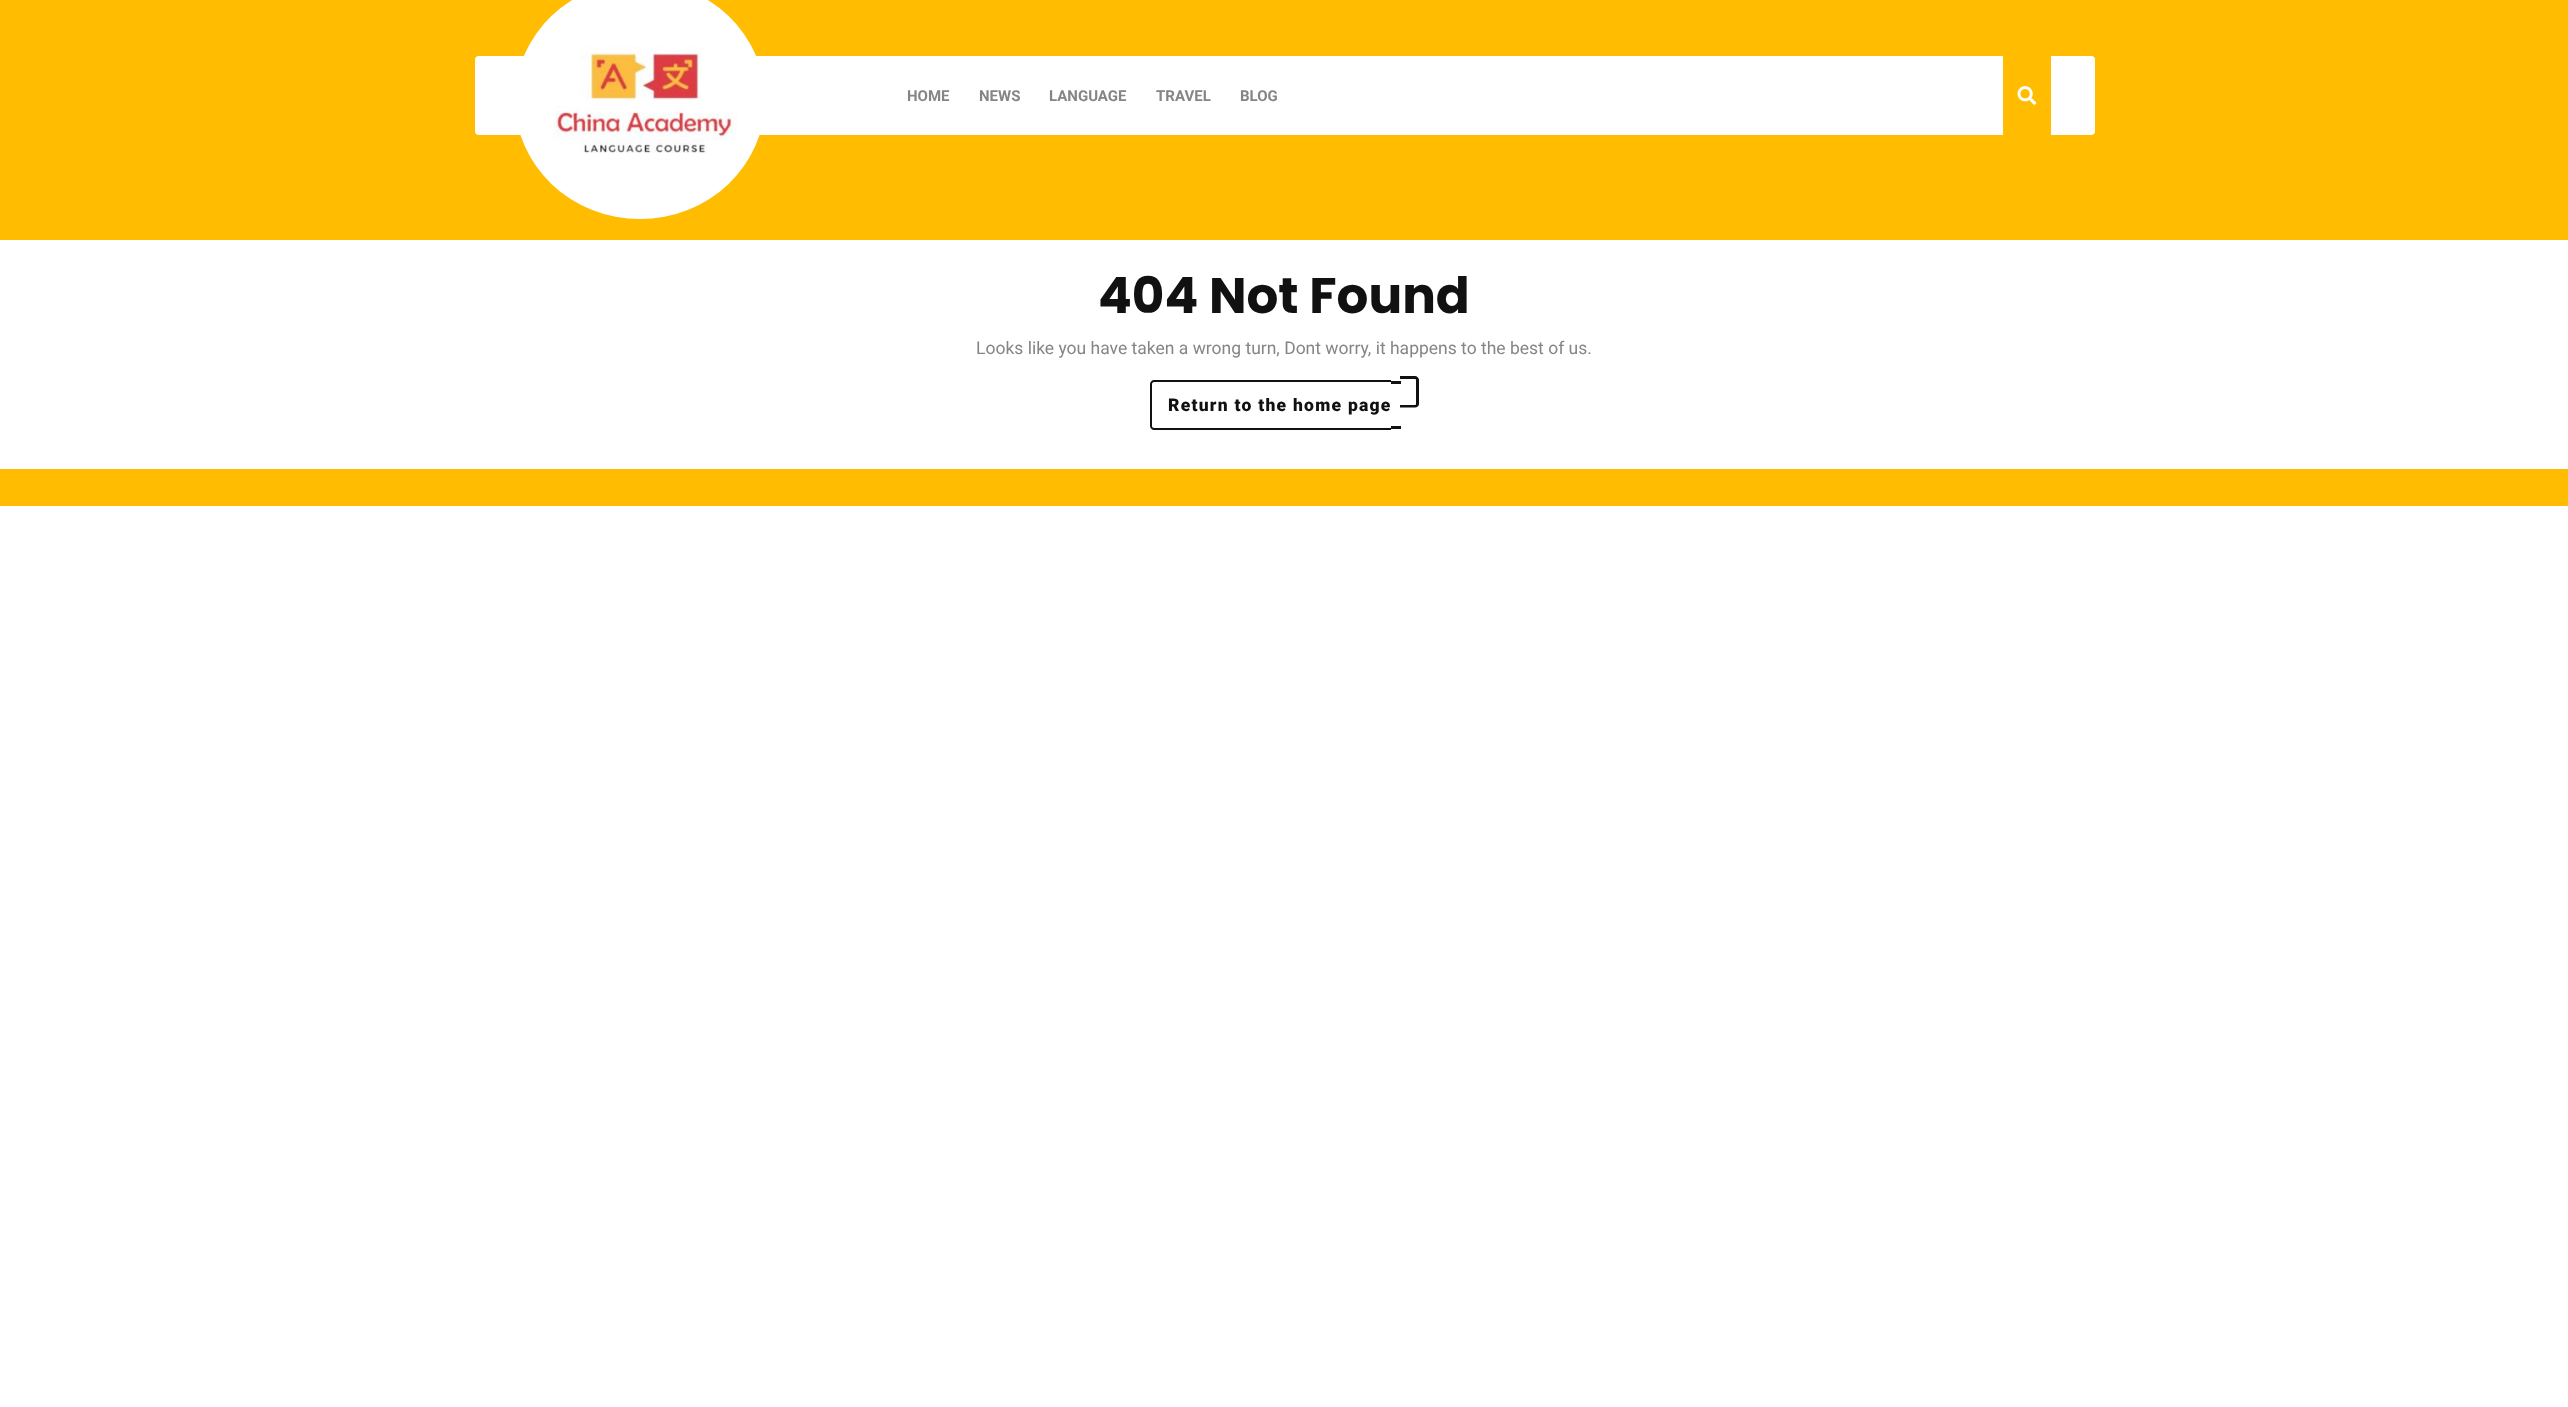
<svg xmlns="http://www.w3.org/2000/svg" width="2568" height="1407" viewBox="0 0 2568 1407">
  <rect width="100%" height="100%" fill="#ffffff"/>
  <rect x="0" y="0" width="2568" height="240" fill="#ffbc00"/>
  <rect x="475" y="56" width="1620" height="79" rx="4" fill="#ffffff"/>
  <ellipse cx="640" cy="100" rx="125" ry="119" fill="#ffffff"/>
  <image x="553" y="46" width="185" height="107" href="img1.png"/>
  <text x="907" y="101" font-family="Roboto" font-size="15" font-weight="bold" fill="#858585">HOME</text>
  <text x="979" y="101" font-family="Roboto" font-size="15" font-weight="bold" fill="#858585">NEWS</text>
  <text x="1049" y="101" font-family="Roboto" font-size="15" font-weight="bold" fill="#858585">LANGUAGE</text>
  <text x="1156" y="101" font-family="Roboto" font-size="15" font-weight="bold" fill="#858585">TRAVEL</text>
  <text x="1240" y="101" font-family="Roboto" font-size="15" font-weight="bold" fill="#858585">BLOG</text>
  <rect x="2003" y="56" width="48" height="79" fill="#ffbc00"/>
  <image x="2017" y="86" width="20" height="19" href="img2.png"/>
  <text x="1098" y="313" font-family="Poppins" font-size="50" font-weight="bold" fill="#111111">404 Not Found</text>
  <text x="976" y="354" font-family="Roboto" font-size="17.5" fill="#858585">Looks like you have taken a wrong turn, Dont worry, it happens to the best of us.</text>
  <path d="M1154 380H1391V430H1154C1152 430 1150 428 1150 426V384C1150 382 1152 380 1154 380ZM1154 382H1391V428H1154C1153 428 1152 427 1152 426V384C1152 383 1153 382 1154 382Z" fill="#111111" fill-rule="evenodd"/>
  <text x="1168" y="411" font-family="Roboto" font-size="17.5" font-weight="900" letter-spacing="1.25" fill="#111111">Return to the home page</text>
  <rect x="1391" y="381" width="10" height="3" fill="#111111"/>
  <rect x="1391" y="426" width="10" height="3" fill="#111111"/>
  <path d="M1400 376H1415C1417 376 1419 378 1419 380V404C1419 406 1417 407.5 1415 407.5H1400ZM1400 379H1415C1415.5 379 1416 379.5 1416 380V404C1416 404.5 1415.5 405 1415 405H1400Z" fill="#111111" fill-rule="evenodd"/>
  <rect x="0" y="469" width="2568" height="37" fill="#ffbc00"/>
</svg>
